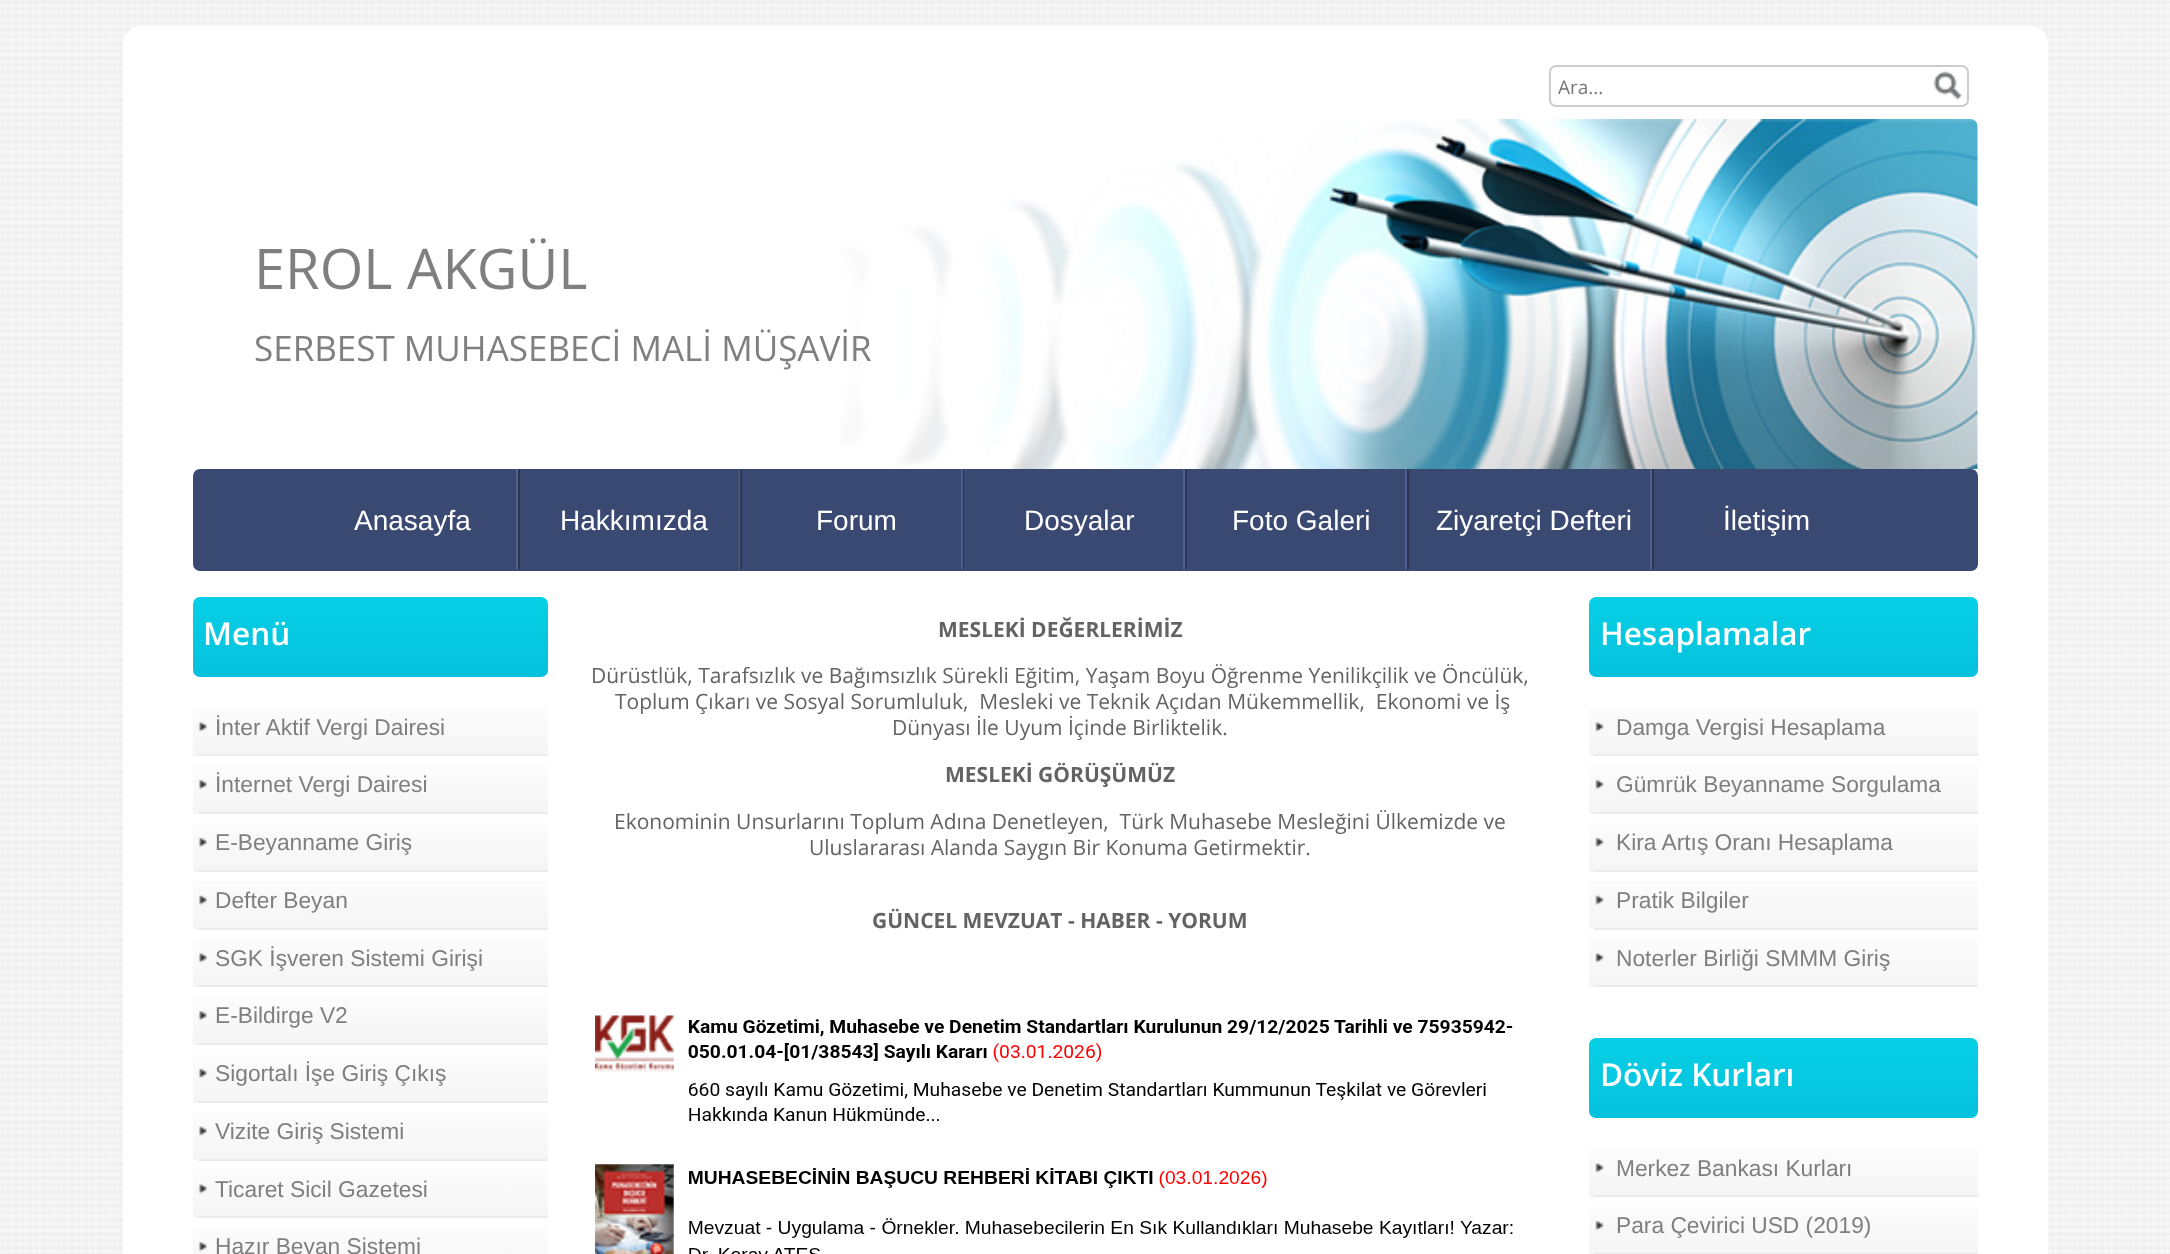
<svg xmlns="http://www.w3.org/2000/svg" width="2170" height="1254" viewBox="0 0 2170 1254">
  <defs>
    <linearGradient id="g1" gradientUnits="userSpaceOnUse" x1="370" y1="597" x2="370" y2="677"><stop offset="0" stop-color="#06d0e5"/><stop offset="0.5" stop-color="#06c8e1"/><stop offset="1" stop-color="#05c1dd"/></linearGradient>
    <linearGradient id="g2" gradientUnits="userSpaceOnUse" x1="370" y1="698" x2="370" y2="756"><stop offset="0" stop-color="#fefefe"/><stop offset="0.5" stop-color="#f9f9f9"/><stop offset="1" stop-color="#f5f5f5"/></linearGradient>
    <linearGradient id="g3" gradientUnits="userSpaceOnUse" x1="370" y1="756" x2="370" y2="814"><stop offset="0" stop-color="#fefefe"/><stop offset="0.5" stop-color="#f9f9f9"/><stop offset="1" stop-color="#f5f5f5"/></linearGradient>
    <linearGradient id="g4" gradientUnits="userSpaceOnUse" x1="370" y1="814" x2="370" y2="872"><stop offset="0" stop-color="#fefefe"/><stop offset="0.5" stop-color="#f9f9f9"/><stop offset="1" stop-color="#f5f5f5"/></linearGradient>
    <linearGradient id="g5" gradientUnits="userSpaceOnUse" x1="370" y1="872" x2="370" y2="929"><stop offset="0" stop-color="#fefefe"/><stop offset="0.5" stop-color="#f9f9f9"/><stop offset="1" stop-color="#f5f5f5"/></linearGradient>
    <linearGradient id="g6" gradientUnits="userSpaceOnUse" x1="370" y1="929" x2="370" y2="987"><stop offset="0" stop-color="#fefefe"/><stop offset="0.5" stop-color="#f9f9f9"/><stop offset="1" stop-color="#f5f5f5"/></linearGradient>
    <linearGradient id="g7" gradientUnits="userSpaceOnUse" x1="370" y1="987" x2="370" y2="1045"><stop offset="0" stop-color="#fefefe"/><stop offset="0.5" stop-color="#f9f9f9"/><stop offset="1" stop-color="#f5f5f5"/></linearGradient>
    <linearGradient id="g8" gradientUnits="userSpaceOnUse" x1="370" y1="1045" x2="370" y2="1103"><stop offset="0" stop-color="#fefefe"/><stop offset="0.5" stop-color="#f9f9f9"/><stop offset="1" stop-color="#f5f5f5"/></linearGradient>
    <linearGradient id="g9" gradientUnits="userSpaceOnUse" x1="370" y1="1103" x2="370" y2="1160"><stop offset="0" stop-color="#fefefe"/><stop offset="0.5" stop-color="#f9f9f9"/><stop offset="1" stop-color="#f5f5f5"/></linearGradient>
    <linearGradient id="g10" gradientUnits="userSpaceOnUse" x1="370" y1="1160" x2="370" y2="1218"><stop offset="0" stop-color="#fefefe"/><stop offset="0.5" stop-color="#f9f9f9"/><stop offset="1" stop-color="#f5f5f5"/></linearGradient>
    <linearGradient id="g11" gradientUnits="userSpaceOnUse" x1="370" y1="1218" x2="370" y2="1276"><stop offset="0" stop-color="#fefefe"/><stop offset="0.5" stop-color="#f9f9f9"/><stop offset="1" stop-color="#f5f5f5"/></linearGradient>
    <linearGradient id="g12" gradientUnits="userSpaceOnUse" x1="1783" y1="597" x2="1783" y2="677"><stop offset="0" stop-color="#06d0e5"/><stop offset="0.5" stop-color="#06c8e1"/><stop offset="1" stop-color="#05c1dd"/></linearGradient>
    <linearGradient id="g13" gradientUnits="userSpaceOnUse" x1="1783" y1="698" x2="1783" y2="756"><stop offset="0" stop-color="#fefefe"/><stop offset="0.5" stop-color="#f9f9f9"/><stop offset="1" stop-color="#f5f5f5"/></linearGradient>
    <linearGradient id="g14" gradientUnits="userSpaceOnUse" x1="1783" y1="756" x2="1783" y2="814"><stop offset="0" stop-color="#fefefe"/><stop offset="0.5" stop-color="#f9f9f9"/><stop offset="1" stop-color="#f5f5f5"/></linearGradient>
    <linearGradient id="g15" gradientUnits="userSpaceOnUse" x1="1783" y1="814" x2="1783" y2="872"><stop offset="0" stop-color="#fefefe"/><stop offset="0.5" stop-color="#f9f9f9"/><stop offset="1" stop-color="#f5f5f5"/></linearGradient>
    <linearGradient id="g16" gradientUnits="userSpaceOnUse" x1="1783" y1="872" x2="1783" y2="929"><stop offset="0" stop-color="#fefefe"/><stop offset="0.5" stop-color="#f9f9f9"/><stop offset="1" stop-color="#f5f5f5"/></linearGradient>
    <linearGradient id="g17" gradientUnits="userSpaceOnUse" x1="1783" y1="929" x2="1783" y2="987"><stop offset="0" stop-color="#fefefe"/><stop offset="0.5" stop-color="#f9f9f9"/><stop offset="1" stop-color="#f5f5f5"/></linearGradient>
    <linearGradient id="g18" gradientUnits="userSpaceOnUse" x1="1783" y1="1038" x2="1783" y2="1118"><stop offset="0" stop-color="#06d0e5"/><stop offset="0.5" stop-color="#06c8e1"/><stop offset="1" stop-color="#05c1dd"/></linearGradient>
    <linearGradient id="g19" gradientUnits="userSpaceOnUse" x1="1783" y1="1139" x2="1783" y2="1197"><stop offset="0" stop-color="#fefefe"/><stop offset="0.5" stop-color="#f9f9f9"/><stop offset="1" stop-color="#f5f5f5"/></linearGradient>
    <linearGradient id="g20" gradientUnits="userSpaceOnUse" x1="1783" y1="1197" x2="1783" y2="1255"><stop offset="0" stop-color="#fefefe"/><stop offset="0.5" stop-color="#f9f9f9"/><stop offset="1" stop-color="#f5f5f5"/></linearGradient>
  </defs>
  <rect width="100%" height="100%" fill="#ffffff"/>
  <image x="0" y="0" width="2170" height="1254" href="img1.png"/>
  <path d="M141 26H2030C2040 26 2048 34 2048 44V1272H123V44C123 34 131 26 141 26Z" fill="#ffffff"/>
  <rect x="1550" y="66" width="418" height="40" rx="6" fill="none" stroke="#cccccc" stroke-width="2"/>
  <text x="1558" y="94" font-family="Open Sans" font-size="19" fill="#757575">Ara...</text>
  <image x="1933" y="71" width="29" height="29" href="img2.png"/>
  <image x="840" y="119" width="1138" height="350" href="img3.png"/>
  <text x="254" y="289" font-family="Open Sans" font-size="56" fill="#7f7f7f">EROL AKGÜL</text>
  <text x="254" y="361" font-family="Open Sans" font-size="35" fill="#7f7f7f">SERBEST MUHASEBECİ MALİ MÜŞAVİR</text>
  <rect x="193" y="469" width="1785" height="102" rx="7" fill="#3a4972"/>
  <rect x="516" y="469" width="2" height="100" fill="#4f6191"/>
  <text x="354" y="530" font-family="Liberation Sans" font-size="28" fill="#ffffff">Anasayfa</text>
  <rect x="739" y="469" width="1" height="100" fill="#4f6191"/>
  <rect x="518" y="469" width="2" height="100" fill="#2b3550"/>
  <text x="560" y="530" font-family="Liberation Sans" font-size="28" fill="#ffffff">Hakkımızda</text>
  <rect x="961" y="469" width="2" height="100" fill="#4f6191"/>
  <rect x="740" y="469" width="2" height="100" fill="#2b3550"/>
  <text x="816" y="530" font-family="Liberation Sans" font-size="28" fill="#ffffff">Forum</text>
  <rect x="1183" y="469" width="2" height="100" fill="#4f6191"/>
  <rect x="963" y="469" width="1" height="100" fill="#2b3550"/>
  <text x="1024" y="530" font-family="Liberation Sans" font-size="28" fill="#ffffff">Dosyalar</text>
  <rect x="1405" y="469" width="2" height="100" fill="#4f6191"/>
  <rect x="1185" y="469" width="2" height="100" fill="#2b3550"/>
  <text x="1232" y="530" font-family="Liberation Sans" font-size="28" fill="#ffffff">Foto Galeri</text>
  <rect x="1650" y="469" width="2" height="100" fill="#4f6191"/>
  <rect x="1407" y="469" width="2" height="100" fill="#2b3550"/>
  <text x="1436" y="530" font-family="Liberation Sans" font-size="28" fill="#ffffff">Ziyaretçi Defteri</text>
  <rect x="1652" y="469" width="2" height="100" fill="#2b3550"/>
  <text x="1723" y="530" font-family="Liberation Sans" font-size="28" fill="#ffffff">İletişim</text>
  <rect x="193" y="597" width="355" height="80" rx="7" fill="url(#g1)"/>
  <text x="203" y="645" font-family="Open Sans" font-size="31.5" font-weight="600" fill="#ffffff">Menü</text>
  <rect x="193" y="707" width="355" height="49" fill="url(#g2)"/>
  <image x="198" y="722" width="9" height="10" href="img4.png"/>
  <rect x="198" y="754" width="350" height="2" fill="#ebebeb"/>
  <text x="215" y="735" font-family="Liberation Sans" font-size="22.75" fill="#7f7f7f">İnter Aktif Vergi Dairesi</text>
  <rect x="193" y="765" width="355" height="49" fill="url(#g3)"/>
  <image x="198" y="780" width="9" height="10" href="img5.png"/>
  <rect x="198" y="812" width="350" height="2" fill="#ebebeb"/>
  <text x="215" y="792" font-family="Liberation Sans" font-size="22.75" fill="#7f7f7f">İnternet Vergi Dairesi</text>
  <rect x="193" y="823" width="355" height="49" fill="url(#g4)"/>
  <image x="198" y="837" width="9" height="10" href="img6.png"/>
  <rect x="198" y="870" width="350" height="2" fill="#ebebeb"/>
  <text x="215" y="850" font-family="Liberation Sans" font-size="22.75" fill="#7f7f7f">E-Beyanname Giriş</text>
  <rect x="193" y="881" width="355" height="48" fill="url(#g5)"/>
  <image x="198" y="895" width="9" height="10" href="img7.png"/>
  <rect x="198" y="928" width="350" height="2" fill="#ebebeb"/>
  <text x="215" y="908" font-family="Liberation Sans" font-size="22.75" fill="#7f7f7f">Defter Beyan</text>
  <rect x="193" y="938" width="355" height="49" fill="url(#g6)"/>
  <image x="198" y="953" width="9" height="10" href="img4.png"/>
  <rect x="198" y="985" width="350" height="2" fill="#ebebeb"/>
  <text x="215" y="966" font-family="Liberation Sans" font-size="22.75" fill="#7f7f7f">SGK İşveren Sistemi Girişi</text>
  <rect x="193" y="996" width="355" height="49" fill="url(#g7)"/>
  <image x="198" y="1011" width="9" height="10" href="img5.png"/>
  <rect x="198" y="1043" width="350" height="2" fill="#ebebeb"/>
  <text x="215" y="1023" font-family="Liberation Sans" font-size="22.75" fill="#7f7f7f">E-Bildirge V2</text>
  <rect x="193" y="1054" width="355" height="49" fill="url(#g8)"/>
  <image x="198" y="1068" width="9" height="10" href="img6.png"/>
  <rect x="198" y="1101" width="350" height="2" fill="#ebebeb"/>
  <text x="215" y="1081" font-family="Liberation Sans" font-size="22.75" fill="#7f7f7f">Sigortalı İşe Giriş Çıkış</text>
  <rect x="193" y="1112" width="355" height="48" fill="url(#g9)"/>
  <image x="198" y="1126" width="9" height="10" href="img7.png"/>
  <rect x="198" y="1159" width="350" height="2" fill="#ebebeb"/>
  <text x="215" y="1139" font-family="Liberation Sans" font-size="22.75" fill="#7f7f7f">Vizite Giriş Sistemi</text>
  <rect x="193" y="1169" width="355" height="49" fill="url(#g10)"/>
  <image x="198" y="1184" width="9" height="10" href="img4.png"/>
  <rect x="198" y="1216" width="350" height="2" fill="#ebebeb"/>
  <text x="215" y="1197" font-family="Liberation Sans" font-size="22.75" fill="#7f7f7f">Ticaret Sicil Gazetesi</text>
  <rect x="193" y="1227" width="355" height="27" fill="url(#g11)"/>
  <image x="198" y="1242" width="9" height="10" href="img5.png"/>
  <text x="215" y="1254" font-family="Liberation Sans" font-size="22.75" fill="#7f7f7f">Hazır Beyan Sistemi</text>
  <text x="938" y="637" font-family="Open Sans" font-size="21" font-weight="bold" fill="#636363">MESLEKİ DEĞERLERİMİZ</text>
  <text x="591" y="683" font-family="Open Sans" font-size="21" fill="#636363">Dürüstlük, Tarafsızlık ve Bağımsızlık Sürekli Eğitim, Yaşam Boyu Öğrenme Yenilikçilik ve Öncülük,</text>
  <text x="615" y="709" font-family="Open Sans" font-size="21" fill="#636363" xml:space="preserve">Toplum Çıkarı ve Sosyal Sorumluluk,  Mesleki ve Teknik Açıdan Mükemmellik,  Ekonomi ve İş</text>
  <text x="892" y="735" font-family="Open Sans" font-size="21" fill="#636363">Dünyası İle Uyum İçinde Birliktelik.</text>
  <text x="945" y="782" font-family="Open Sans" font-size="21" font-weight="bold" fill="#636363">MESLEKİ GÖRÜŞÜMÜZ</text>
  <text x="614" y="829" font-family="Open Sans" font-size="21" fill="#636363" xml:space="preserve">Ekonominin Unsurlarını Toplum Adına Denetleyen,  Türk Muhasebe Mesleğini Ülkemizde ve</text>
  <text x="809" y="855" font-family="Open Sans" font-size="21" fill="#636363">Uluslararası Alanda Saygın Bir Konuma Getirmektir.</text>
  <text x="872" y="928" font-family="Open Sans" font-size="21" font-weight="bold" fill="#636363">GÜNCEL MEVZUAT - HABER - YORUM</text>
  <image x="595" y="1015" width="918" height="239" href="img8.png"/>
  <rect x="1589" y="597" width="389" height="80" rx="7" fill="url(#g12)"/>
  <text x="1600" y="645" font-family="Open Sans" font-size="31.5" font-weight="600" fill="#ffffff">Hesaplamalar</text>
  <rect x="1589" y="707" width="389" height="49" fill="url(#g13)"/>
  <image x="1595" y="722" width="9" height="10" href="img9.png"/>
  <rect x="1594" y="754" width="384" height="2" fill="#ebebeb"/>
  <text x="1616" y="735" font-family="Liberation Sans" font-size="22.75" fill="#7f7f7f">Damga Vergisi Hesaplama</text>
  <rect x="1589" y="765" width="389" height="49" fill="url(#g14)"/>
  <image x="1595" y="780" width="9" height="10" href="img10.png"/>
  <rect x="1594" y="812" width="384" height="2" fill="#ebebeb"/>
  <text x="1616" y="792" font-family="Liberation Sans" font-size="22.75" fill="#7f7f7f">Gümrük Beyanname Sorgulama</text>
  <rect x="1589" y="823" width="389" height="49" fill="url(#g15)"/>
  <image x="1595" y="837" width="9" height="10" href="img11.png"/>
  <rect x="1594" y="870" width="384" height="2" fill="#ebebeb"/>
  <text x="1616" y="850" font-family="Liberation Sans" font-size="22.75" fill="#7f7f7f">Kira Artış Oranı Hesaplama</text>
  <rect x="1589" y="881" width="389" height="48" fill="url(#g16)"/>
  <image x="1595" y="895" width="9" height="10" href="img12.png"/>
  <rect x="1594" y="928" width="384" height="2" fill="#ebebeb"/>
  <text x="1616" y="908" font-family="Liberation Sans" font-size="22.75" fill="#7f7f7f">Pratik Bilgiler</text>
  <rect x="1589" y="938" width="389" height="49" fill="url(#g17)"/>
  <image x="1595" y="953" width="9" height="10" href="img9.png"/>
  <rect x="1594" y="985" width="384" height="2" fill="#ebebeb"/>
  <text x="1616" y="966" font-family="Liberation Sans" font-size="22.75" fill="#7f7f7f">Noterler Birliği SMMM Giriş</text>
  <rect x="1589" y="1038" width="389" height="80" rx="7" fill="url(#g18)"/>
  <text x="1600" y="1086" font-family="Open Sans" font-size="31.5" font-weight="600" fill="#ffffff">Döviz Kurları</text>
  <rect x="1589" y="1148" width="389" height="49" fill="url(#g19)"/>
  <image x="1595" y="1163" width="9" height="10" href="img9.png"/>
  <rect x="1594" y="1195" width="384" height="2" fill="#ebebeb"/>
  <text x="1616" y="1176" font-family="Liberation Sans" font-size="22.75" fill="#7f7f7f">Merkez Bankası Kurları</text>
  <rect x="1589" y="1206" width="389" height="48" fill="url(#g20)"/>
  <image x="1595" y="1221" width="9" height="10" href="img10.png"/>
  <rect x="1594" y="1253" width="384" height="1" fill="#ebebeb"/>
  <text x="1616" y="1233" font-family="Liberation Sans" font-size="22.75" fill="#7f7f7f">Para Çevirici USD (2019)</text>
</svg>
